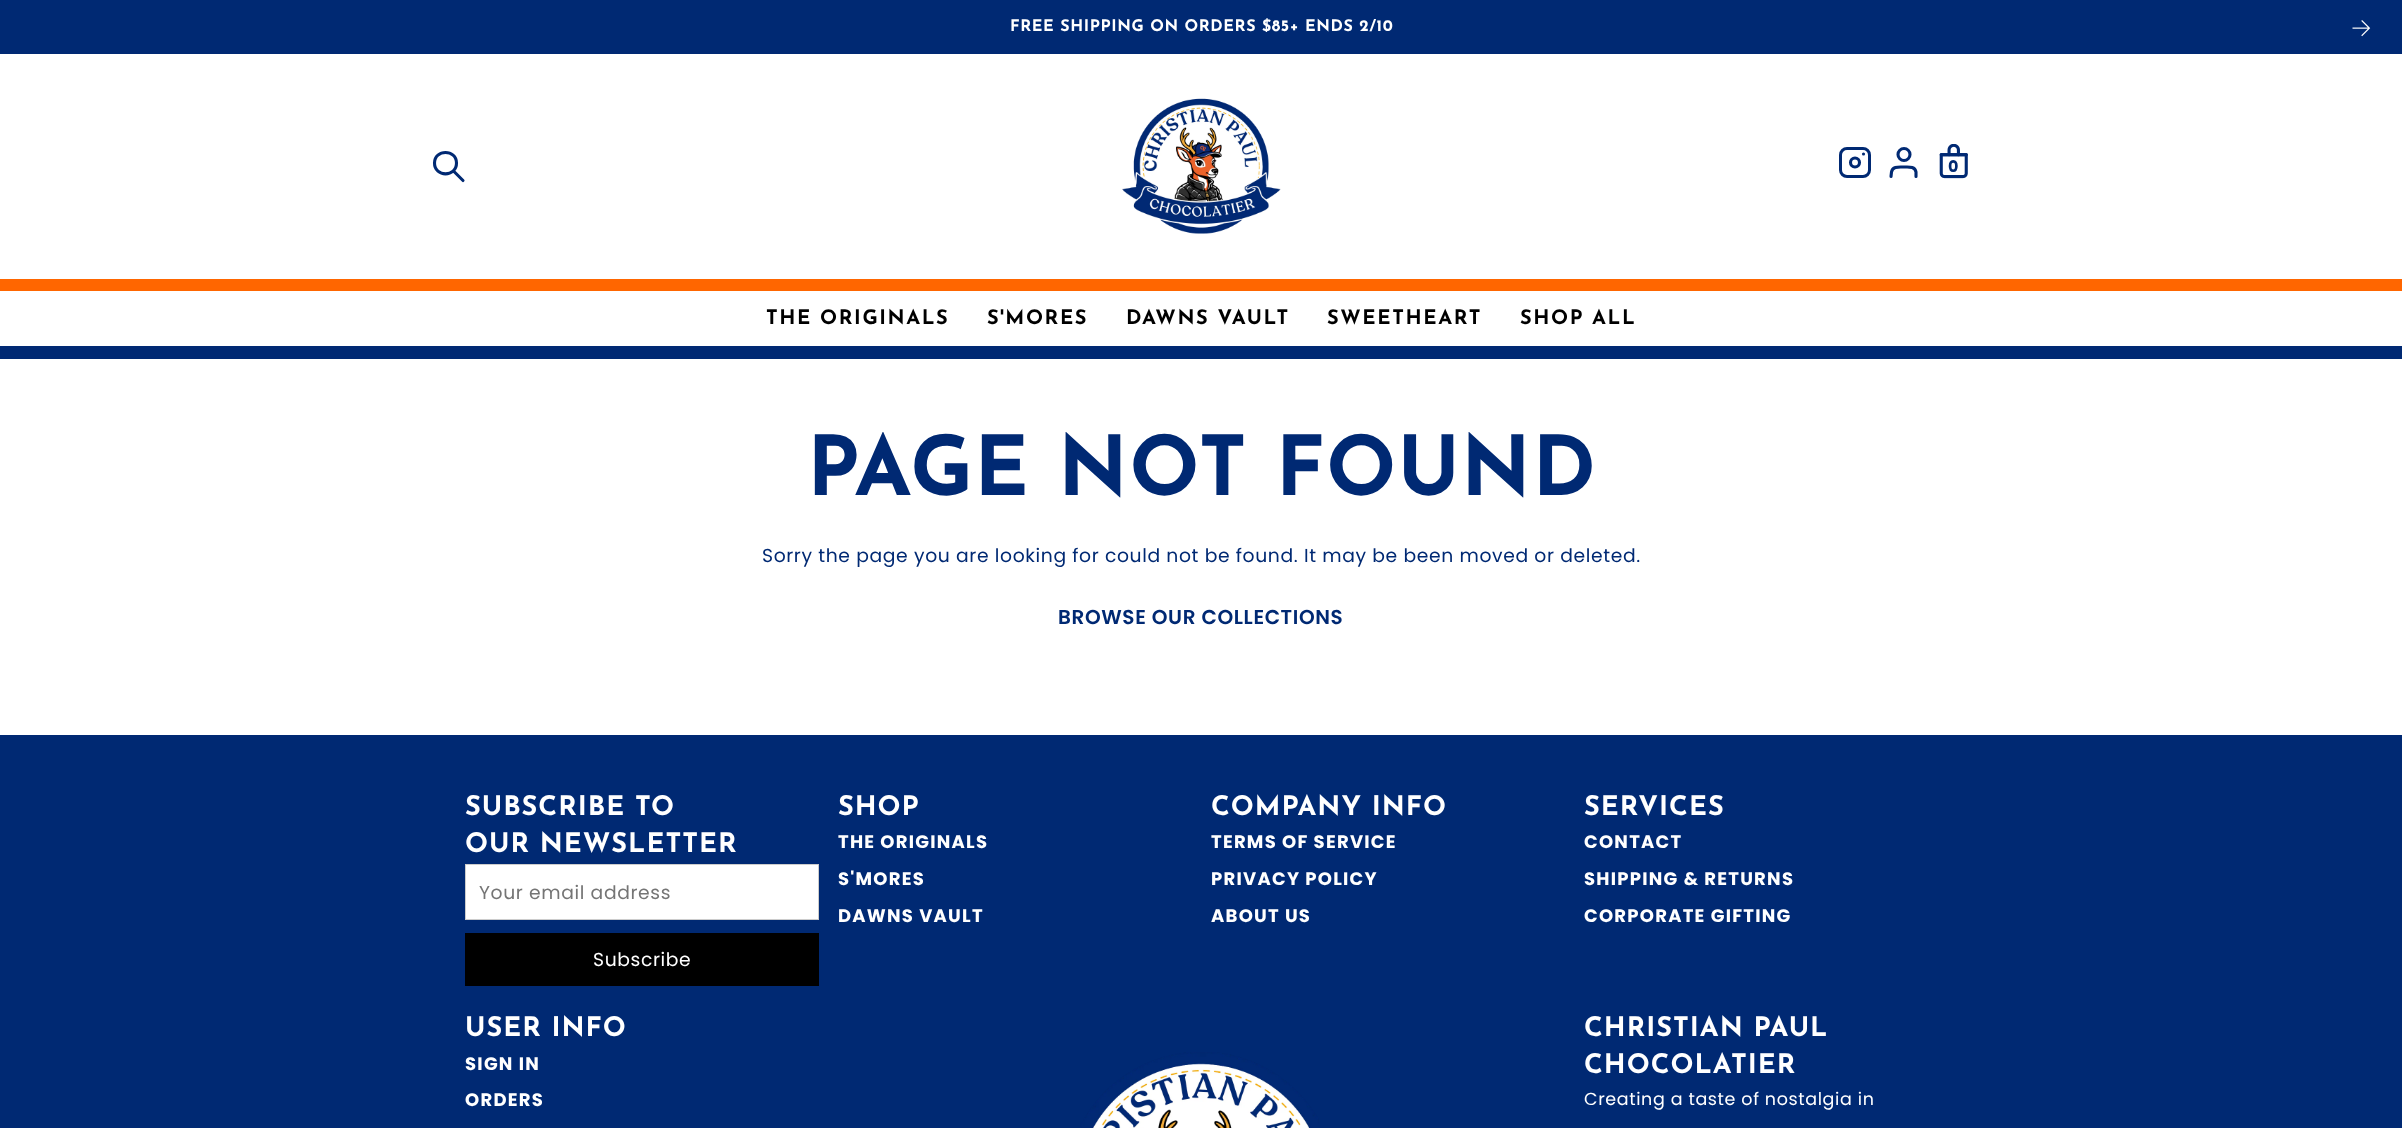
<svg xmlns="http://www.w3.org/2000/svg" width="2402" height="1128" viewBox="0 0 2402 1128">
  <rect width="100%" height="100%" fill="#ffffff"/>
  <rect x="0" y="0" width="2402" height="54" fill="#002973"/>
  <text x="1010" y="31" font-family="Josefin Sans" font-size="16" font-weight="bold" letter-spacing="0.62" fill="#ffffff">FREE SHIPPING ON ORDERS $85+ ENDS 2/10</text>
  <image x="2352" y="20" width="19" height="17" href="img1.png"/>
  <path d="M463 180.5L453.5 171M456.5 163C456.5 177.5 434.5 177.5 434.5 163C434.5 149 456.5 149 456.5 163Z" fill="none" stroke="#002973" stroke-width="3.1" stroke-linecap="round" stroke-linejoin="round"/>
  <image x="1122" y="98" width="159" height="136" href="img2.png"/>
  <rect x="1840.5" y="148.5" width="29" height="28" rx="6.5" fill="none" stroke="#002973" stroke-width="3"/>
  <circle cx="1855" cy="162.5" r="4.5" fill="none" stroke="#002973" stroke-width="3.1"/>
  <path d="M1863.5 154H1863.5" fill="none" stroke="#002973" stroke-width="3.1" stroke-linecap="round" stroke-linejoin="round"/>
  <path d="M1916 176.5V172C1915 166 1908.5 167 1904 167C1899 167 1892.5 166 1891.5 172L1891 176.5" fill="none" stroke="#002973" stroke-width="3.1" stroke-linecap="round" stroke-linejoin="round"/>
  <circle cx="1904" cy="154.5" r="6" fill="none" stroke="#002973" stroke-width="3.1"/>
  <image x="1939" y="144" width="29" height="35" href="img3.png"/>
  <text x="1948" y="172" font-family="Poppins" font-size="16" font-weight="bold" letter-spacing="0.62" fill="#002973">0</text>
  <rect x="0" y="279" width="2402" height="12" fill="#ff6600"/>
  <text x="766" y="324" font-family="Josefin Sans" font-size="20" font-weight="bold" letter-spacing="1.6" fill="#000000">THE ORIGINALS</text>
  <text x="987" y="324" font-family="Josefin Sans" font-size="20" font-weight="bold" letter-spacing="1.6" fill="#000000">S'MORES</text>
  <text x="1126" y="324" font-family="Josefin Sans" font-size="20" font-weight="bold" letter-spacing="1.6" fill="#000000">DAWNS VAULT</text>
  <text x="1327" y="324" font-family="Josefin Sans" font-size="20" font-weight="bold" letter-spacing="1.6" fill="#000000">SWEETHEART</text>
  <text x="1520" y="324" font-family="Josefin Sans" font-size="20" font-weight="bold" letter-spacing="1.6" fill="#000000">SHOP ALL</text>
  <rect x="0" y="346" width="2402" height="13" fill="#002973"/>
  <text x="807" y="495" font-family="Josefin Sans" font-size="82.5" font-weight="bold" letter-spacing="1" fill="#002973">PAGE NOT FOUND</text>
  <text x="762" y="562" font-family="Poppins" font-size="18.75" letter-spacing="0.62" fill="#002973">Sorry the page you are looking for could not be found. It may be been moved or deleted.</text>
  <text x="1058" y="624" font-family="Poppins" font-size="20" font-weight="600" letter-spacing="0.62" fill="#002973">BROWSE OUR COLLECTIONS</text>
  <rect x="0" y="735" width="2402" height="393" fill="#002973"/>
  <text x="465" y="815" font-family="Josefin Sans" font-size="27" font-weight="bold" letter-spacing="1" fill="#ffffff">SUBSCRIBE TO</text>
  <text x="465" y="852" font-family="Josefin Sans" font-size="27" font-weight="bold" letter-spacing="1" fill="#ffffff">OUR NEWSLETTER</text>
  <rect x="465.5" y="864.5" width="353" height="55" fill="#ffffff" stroke="#cccccc"/>
  <text x="479" y="899" font-family="Poppins" font-size="18.75" letter-spacing="0.62" fill="#757575">Your email address</text>
  <rect x="465" y="933" width="354" height="53" fill="#000000"/>
  <text x="593" y="966" font-family="Poppins" font-size="18.75" letter-spacing="0.62" fill="#ffffff">Subscribe</text>
  <text x="838" y="815" font-family="Josefin Sans" font-size="27" font-weight="bold" letter-spacing="1" fill="#ffffff">SHOP</text>
  <text x="838" y="848" font-family="Poppins" font-size="18" font-weight="bold" letter-spacing="1.25" fill="#ffffff">THE ORIGINALS</text>
  <text x="838" y="885" font-family="Poppins" font-size="18" font-weight="bold" letter-spacing="1.25" fill="#ffffff">S'MORES</text>
  <text x="838" y="922" font-family="Poppins" font-size="18" font-weight="bold" letter-spacing="1.25" fill="#ffffff">DAWNS VAULT</text>
  <text x="1211" y="815" font-family="Josefin Sans" font-size="27" font-weight="bold" letter-spacing="1" fill="#ffffff">COMPANY INFO</text>
  <text x="1211" y="848" font-family="Poppins" font-size="18" font-weight="bold" letter-spacing="1.25" fill="#ffffff">TERMS OF SERVICE</text>
  <text x="1211" y="885" font-family="Poppins" font-size="18" font-weight="bold" letter-spacing="1.25" fill="#ffffff">PRIVACY POLICY</text>
  <text x="1211" y="922" font-family="Poppins" font-size="18" font-weight="bold" letter-spacing="1.25" fill="#ffffff">ABOUT US</text>
  <text x="1584" y="815" font-family="Josefin Sans" font-size="27" font-weight="bold" letter-spacing="1" fill="#ffffff">SERVICES</text>
  <text x="1584" y="848" font-family="Poppins" font-size="18" font-weight="bold" letter-spacing="1.25" fill="#ffffff">CONTACT</text>
  <text x="1584" y="885" font-family="Poppins" font-size="18" font-weight="bold" letter-spacing="1.25" fill="#ffffff">SHIPPING &amp; RETURNS</text>
  <text x="1584" y="922" font-family="Poppins" font-size="18" font-weight="bold" letter-spacing="1.25" fill="#ffffff">CORPORATE GIFTING</text>
  <text x="465" y="1036" font-family="Josefin Sans" font-size="27" font-weight="bold" letter-spacing="1" fill="#ffffff">USER INFO</text>
  <text x="465" y="1070" font-family="Poppins" font-size="18" font-weight="bold" letter-spacing="1.25" fill="#ffffff">SIGN IN</text>
  <text x="465" y="1106" font-family="Poppins" font-size="18" font-weight="bold" letter-spacing="1.25" fill="#ffffff">ORDERS</text>
  <image x="1080" y="1052" width="239" height="76" href="img4.png"/>
  <text x="1584" y="1036" font-family="Josefin Sans" font-size="27" font-weight="bold" letter-spacing="1" fill="#ffffff">CHRISTIAN PAUL</text>
  <text x="1584" y="1073" font-family="Josefin Sans" font-size="27" font-weight="bold" letter-spacing="1" fill="#ffffff">CHOCOLATIER</text>
  <text x="1584" y="1105" font-family="Poppins" font-size="17.5" letter-spacing="0.62" fill="#ffffff">Creating a taste of nostalgia in</text>
</svg>
